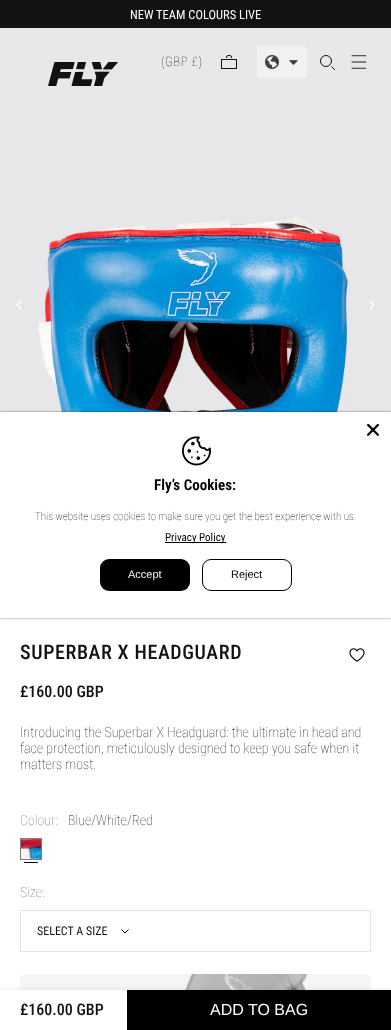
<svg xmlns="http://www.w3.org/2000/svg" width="391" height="1030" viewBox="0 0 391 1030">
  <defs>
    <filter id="blur1" x="-50%" y="-200%" width="200%" height="500%"><feGaussianBlur stdDeviation="1"/></filter>
    <filter id="blur2" x="-50%" y="-200%" width="200%" height="500%"><feGaussianBlur stdDeviation="2.5"/></filter>
  </defs>
  <rect width="100%" height="100%" fill="#ffffff"/>
  <rect x="0" y="0" width="391" height="28" fill="#121212"/>
  <text x="130" y="19" font-family="Roboto Condensed" font-size="12.5" fill="#ffffff">NEW TEAM COLOURS LIVE</text>
  <rect x="0" y="28" width="391" height="68" fill="#e8e8e8"/>
  <image x="48" y="62" width="70" height="24" href="img1.png"/>
  <text x="161" y="66" font-family="Roboto Condensed" font-size="13" font-weight="100" letter-spacing="0.5" fill="#121212">(GBP £)</text>
  <image x="221" y="55" width="16" height="14" href="img2.png"/>
  <rect x="257" y="46" width="50" height="32" rx="4" fill="#f1f1f1"/>
  <image x="265" y="55" width="14" height="14" href="img3.png"/>
  <image x="289" y="60" width="9" height="5" href="img4.png"/>
  <circle cx="326" cy="61" r="5.5" fill="none" stroke="#121212"/>
  <path d="M335 70L331.5 66.5" fill="none" stroke="#121212"/>
  <image x="351" y="55" width="16" height="14" href="img5.png"/>
  <image x="0" y="96" width="391" height="316" href="img8.png"/>
  <rect x="0" y="412" width="391" height="206" fill="#000000" fill-opacity="0.5" filter="url(#blur1)"/>
  <rect x="0" y="412" width="391" height="206" fill="#ffffff"/>
  <image x="367" y="423" width="12" height="13" href="img6.png"/>
  <image x="182" y="436" width="29" height="30" href="img7.png"/>
  <text x="154" y="490" font-family="Roboto Condensed" font-size="15" font-weight="600" fill="#000000">Fly’s Cookies:</text>
  <text x="35" y="520" font-family="Roboto Condensed" font-size="11" font-weight="100" fill="#000000">This website uses cookies to make sure you get the best experience with us.</text>
  <rect x="165" y="542" width="61" height="1" fill="#000000"/>
  <text x="165" y="541" font-family="Roboto Condensed" font-size="11" fill="#000000">Privacy Policy</text>
  <rect x="100" y="559" width="90" height="32" rx="9" fill="#000000"/>
  <text x="128" y="578" font-family="Liberation Sans" font-size="11" fill="#f8f8f8">Accept</text>
  <rect x="202.5" y="559.5" width="89" height="31" rx="8.5" fill="none" stroke="#000000"/>
  <text x="231" y="578" font-family="Liberation Sans" font-size="11" fill="#000000">Reject</text>
  <image x="16" y="300" width="6" height="10" href="img9.png"/>
  <image x="369" y="300" width="6" height="10" href="img10.png"/>
  <text x="20" y="659" font-family="Roboto Condensed" font-size="20" font-weight="500" letter-spacing="0.6" fill="#121212">SUPERBAR X HEADGUARD</text>
  <image x="349" y="648" width="16" height="14" href="img11.png"/>
  <text x="20" y="697" font-family="Roboto Condensed" font-size="16" font-weight="500" fill="#121212">£160.00 GBP</text>
  <text x="20" y="737" font-family="Roboto Condensed" font-size="14" font-weight="100" fill="#121212">Introducing the Superbar X Headguard: the ultimate in head and</text>
  <text x="20" y="753" font-family="Roboto Condensed" font-size="14" font-weight="100" fill="#121212">face protection, meticulously designed to keep you safe when it</text>
  <text x="20" y="769" font-family="Roboto Condensed" font-size="14" font-weight="100" fill="#121212">matters most.</text>
  <text x="20" y="825" font-family="Roboto Condensed" font-size="14" font-weight="100" fill="#717171">Colour:</text>
  <text x="68" y="825" font-family="Roboto Condensed" font-size="14" font-weight="100" fill="#121212">Blue/White/Red</text>
  <image x="21" y="839" width="20" height="20" href="img12.png"/>
  <rect x="20.5" y="838.5" width="21" height="21" fill="none" stroke="#808080"/>
  <rect x="24" y="862" width="14" height="1" rx="0.5" fill="#000000"/>
  <text x="20" y="897" font-family="Roboto Condensed" font-size="14" font-weight="100" fill="#717171">Size:</text>
  <rect x="20.5" y="910.5" width="350" height="41" fill="none" stroke="#e4e4e4"/>
  <text x="37" y="935" font-family="Roboto Condensed" font-size="12" fill="#121212">SELECT A SIZE</text>
  <path d="M121.5 929.5L125 933L128.5 929.5" fill="none" stroke="#000000"/>
  <rect x="20" y="974" width="351" height="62" rx="6" fill="#f5f5f5"/>
  <image x="185" y="974" width="123" height="16" href="img13.png"/>
  <rect x="0" y="990" width="391" height="40" fill="#000000" fill-opacity="0.1" filter="url(#blur2)"/>
  <rect x="0" y="990" width="127" height="40" fill="#ffffff"/>
  <text x="20" y="1015" font-family="Roboto Condensed" font-size="16" font-weight="500" fill="#121212">£160.00 GBP</text>
  <rect x="127" y="990" width="264" height="40" fill="#000000"/>
  <text x="210" y="1015" font-family="Liberation Sans" font-size="16" fill="#ffffff">ADD TO BAG</text>
</svg>
